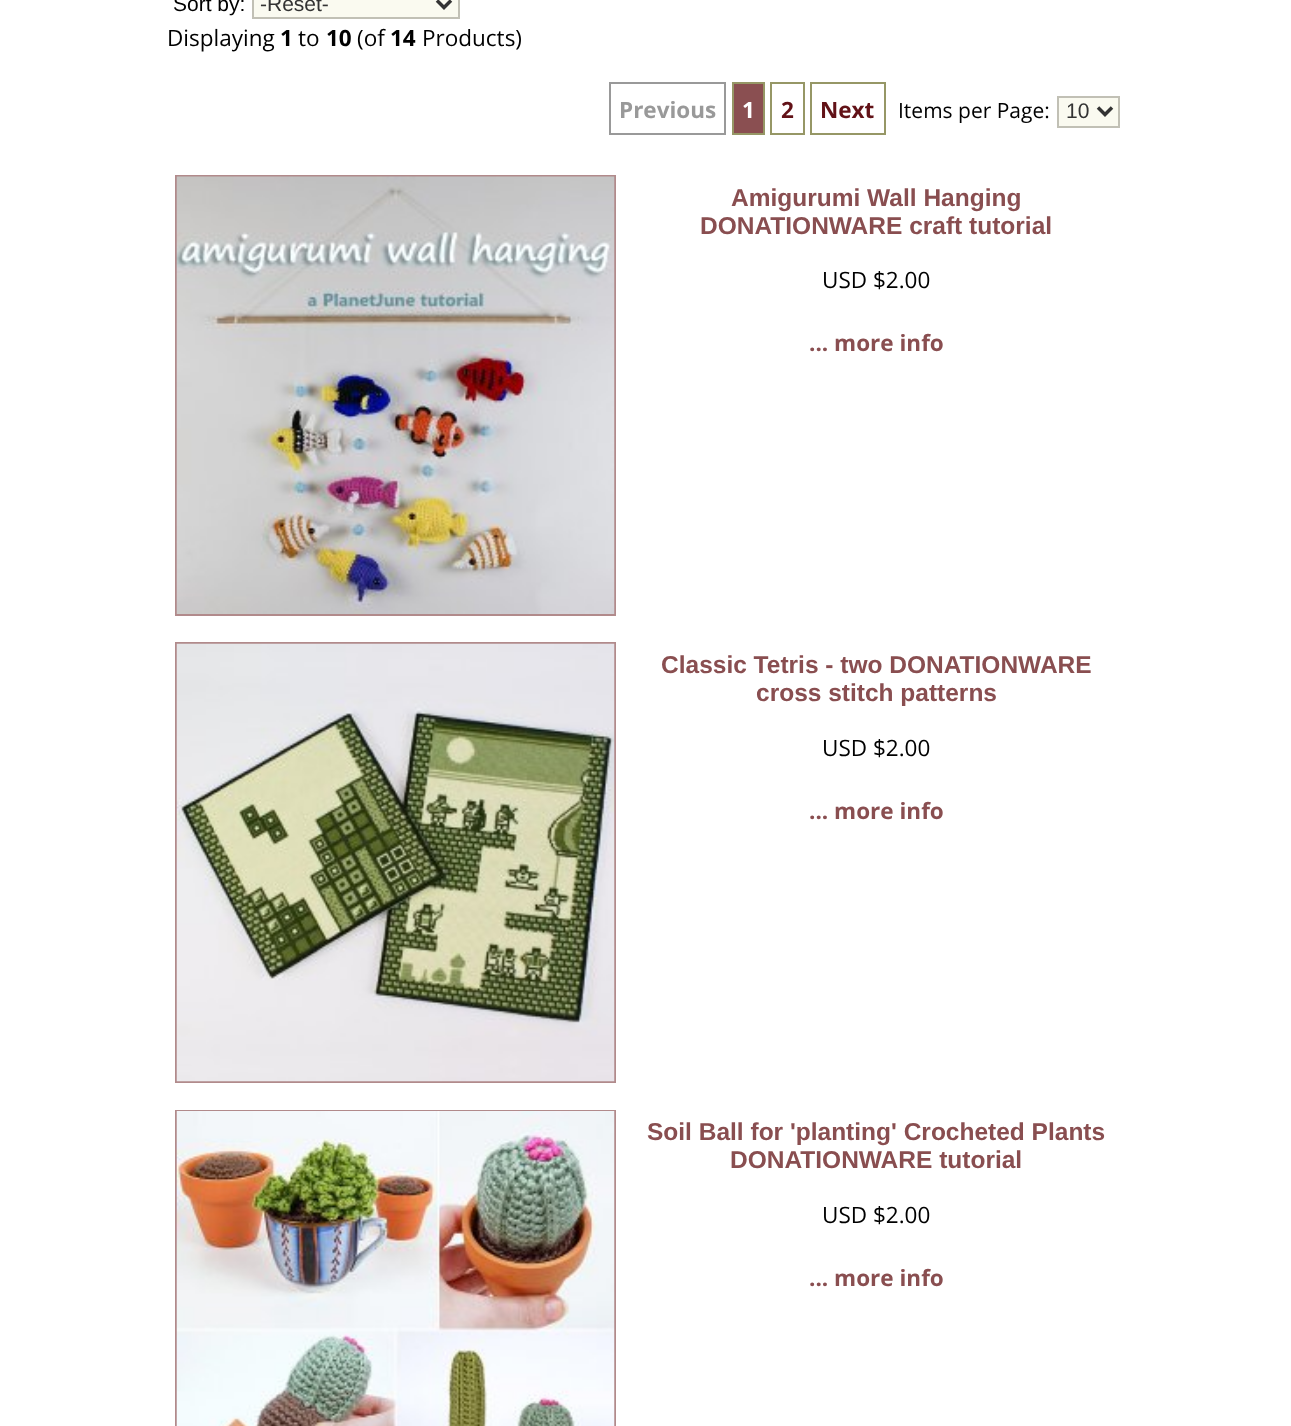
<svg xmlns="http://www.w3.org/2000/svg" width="1291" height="1426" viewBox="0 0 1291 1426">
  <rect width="100%" height="100%" fill="#ffffff"/>
  <text x="173" y="11" font-family="Liberation Sans" font-size="21" fill="#000000">Sort by:</text>
  <rect x="253" y="-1" width="206" height="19" fill="#fafaf0" stroke="#c1c0b5" stroke-width="2"/>
  <path d="M437 .5L444 7.5L451 .5" fill="none" stroke="#333333" stroke-width="3.5"/>
  <text x="260" y="11" font-family="Liberation Sans" font-size="21" fill="#333333">-Reset-</text>
  <text x="167" y="46" font-family="Open Sans" font-size="22.5" fill="#000000">Displaying</text>
  <text x="280" y="46" font-family="Open Sans" font-size="22.5" font-weight="bold" fill="#000000">1</text>
  <text x="298" y="46" font-family="Open Sans" font-size="22.5" fill="#000000">to</text>
  <text x="326" y="46" font-family="Open Sans" font-size="22.5" font-weight="bold" fill="#000000">10</text>
  <text x="357" y="46" font-family="Open Sans" font-size="22.5" fill="#000000">(of</text>
  <text x="390" y="46" font-family="Open Sans" font-size="22.5" font-weight="bold" fill="#000000">14</text>
  <text x="422" y="46" font-family="Open Sans" font-size="22.5" fill="#000000">Products)</text>
  <rect x="610" y="83" width="115" height="51" fill="none" stroke="#999999" stroke-width="2"/>
  <text x="619" y="118" font-family="Open Sans" font-size="22.5" font-weight="bold" fill="#999999">Previous</text>
  <rect x="733" y="83" width="31" height="51" fill="#8a4f51" stroke="#969766" stroke-width="2"/>
  <text x="742" y="118" font-family="Open Sans" font-size="22.5" font-weight="bold" fill="#ffffff">1</text>
  <rect x="771" y="83" width="33" height="51" fill="none" stroke="#969766" stroke-width="2"/>
  <text x="781" y="118" font-family="Open Sans" font-size="22.5" font-weight="bold" fill="#621217">2</text>
  <rect x="811" y="83" width="74" height="51" fill="none" stroke="#969766" stroke-width="2"/>
  <text x="820" y="118" font-family="Open Sans" font-size="22.5" font-weight="bold" fill="#621217">Next</text>
  <text x="898" y="118" font-family="Open Sans" font-size="21" fill="#000000">Items per Page:</text>
  <rect x="1058" y="97" width="61" height="30" fill="#fafaf0" stroke="#c1c0b5" stroke-width="2"/>
  <path d="M1098 107.5L1105 114.5L1112 107.5" fill="none" stroke="#333333" stroke-width="3.5"/>
  <text x="1066" y="118" font-family="Liberation Sans" font-size="21" fill="#333333">10</text>
  <rect x="176" y="176" width="439" height="439" fill="none" stroke="#b18a8b" stroke-width="2"/>
  <image x="176" y="176" width="439" height="438" href="img1.png"/>
  <text x="731" y="206" font-family="Liberation Sans" font-size="24.5" font-weight="bold" fill="#894e50">Amigurumi Wall Hanging</text>
  <text x="700" y="234" font-family="Liberation Sans" font-size="24.5" font-weight="bold" fill="#894e50">DONATIONWARE craft tutorial</text>
  <text x="822" y="288" font-family="Open Sans" font-size="22.5" fill="#000000">USD $2.00</text>
  <text x="809" y="351" font-family="Open Sans" font-size="22.5" font-weight="bold" fill="#894e50">... more info</text>
  <rect x="176" y="643" width="439" height="439" fill="none" stroke="#b18a8b" stroke-width="2"/>
  <image x="176" y="643" width="439" height="439" href="img2.png"/>
  <text x="661" y="673" font-family="Liberation Sans" font-size="24.5" font-weight="bold" fill="#894e50">Classic Tetris - two DONATIONWARE</text>
  <text x="756" y="701" font-family="Liberation Sans" font-size="24.5" font-weight="bold" fill="#894e50">cross stitch patterns</text>
  <text x="822" y="756" font-family="Open Sans" font-size="22.5" fill="#000000">USD $2.00</text>
  <text x="809" y="819" font-family="Open Sans" font-size="22.5" font-weight="bold" fill="#894e50">... more info</text>
  <rect x="176" y="1111" width="439" height="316" fill="none" stroke="#b18a8b" stroke-width="2"/>
  <image x="176" y="1111" width="439" height="315" href="img3.png"/>
  <text x="647" y="1140" font-family="Liberation Sans" font-size="24.5" font-weight="bold" fill="#894e50">Soil Ball for 'planting' Crocheted Plants</text>
  <text x="730" y="1168" font-family="Liberation Sans" font-size="24.5" font-weight="bold" fill="#894e50">DONATIONWARE tutorial</text>
  <text x="822" y="1223" font-family="Open Sans" font-size="22.5" fill="#000000">USD $2.00</text>
  <text x="809" y="1286" font-family="Open Sans" font-size="22.5" font-weight="bold" fill="#894e50">... more info</text>
</svg>
